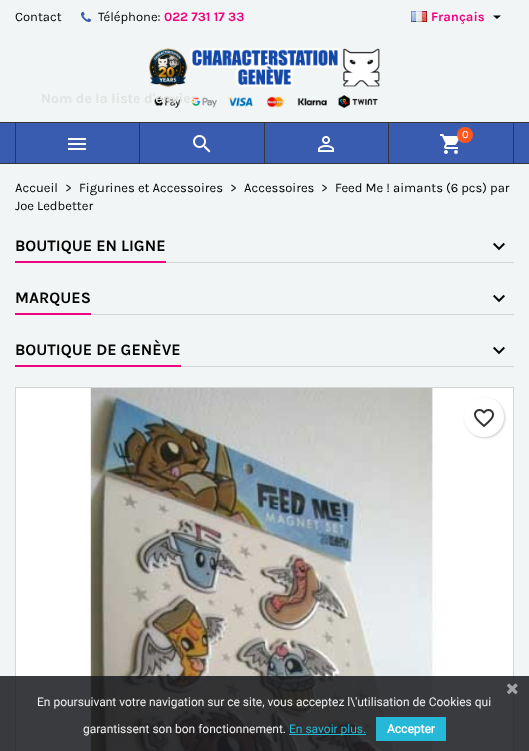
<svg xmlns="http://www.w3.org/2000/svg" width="529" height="751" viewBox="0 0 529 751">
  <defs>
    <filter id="blur1" x="-50%" y="-200%" width="200%" height="500%"><feGaussianBlur stdDeviation="1"/></filter>
  </defs>
  <rect width="100%" height="100%" fill="#f2f5f5"/>
  <text x="15" y="21" font-family="Karla" font-size="13" fill="#000000">Contact</text>
  <image x="81" y="11" width="11" height="11" href="img1.png"/>
  <text x="98" y="21" font-family="Karla" font-size="13" fill="#000000">Téléphone:</text>
  <text x="164" y="21" font-family="Karla" font-size="13" font-weight="bold" fill="#f0037f">022 731 17 33</text>
  <image x="411" y="11" width="16" height="11" href="img2.png"/>
  <text x="431" y="21" font-family="Karla" font-size="13" font-weight="bold" fill="#f0037f">Français</text>
  <path d="M493 15.5H501L497 19Z" fill="#000000"/>
  <image x="148" y="48" width="232" height="60" href="img3.png"/>
  <rect x="0" y="123" width="529" height="40" fill="#3a5cb0"/>
  <rect x="0" y="122" width="529" height="1" fill="#363636"/>
  <rect x="0" y="163" width="529" height="1" fill="#363636"/>
  <rect x="139" y="123" width="1" height="40" fill="#363636"/>
  <rect x="15" y="123" width="1" height="40" fill="#363636"/>
  <image x="68" y="138" width="18" height="12" href="img4.png"/>
  <rect x="264" y="123" width="1" height="40" fill="#363636"/>
  <image x="193" y="135" width="18" height="18" href="img5.png"/>
  <rect x="388" y="123" width="1" height="40" fill="#363636"/>
  <image x="318" y="136" width="16" height="16" href="img6.png"/>
  <rect x="513" y="123" width="1" height="40" fill="#363636"/>
  <image x="440" y="134" width="19" height="20" href="img7.png"/>
  <circle cx="465" cy="135" r="8" fill="#ff5722"/>
  <text x="462" y="138" font-family="Karla" font-size="11" fill="#ffffff">0</text>
  <text x="41" y="103" font-family="Karla" font-size="14" font-weight="bold" fill="#e2e4e3">Nom de la liste d'envies</text>
  <text x="15" y="192" font-family="Karla" font-size="13" fill="#000000">Accueil</text>
  <text x="65" y="192" font-family="Karla" font-size="13" fill="#000000">&gt;</text>
  <text x="79" y="192" font-family="Karla" font-size="13" fill="#000000">Figurines et Accessoires</text>
  <text x="230" y="192" font-family="Karla" font-size="13" fill="#000000">&gt;</text>
  <text x="244" y="192" font-family="Karla" font-size="13" fill="#000000">Accessoires</text>
  <text x="321" y="192" font-family="Karla" font-size="13" fill="#000000">&gt;</text>
  <text x="335" y="192" font-family="Karla" font-size="13" fill="#000000">Feed Me ! aimants (6 pcs) par</text>
  <text x="15" y="210" font-family="Karla" font-size="13" fill="#000000">Joe Ledbetter</text>
  <rect x="166" y="262" width="348" height="1" fill="#d6d4d4"/>
  <rect x="15" y="261" width="151" height="2" fill="#f0037f"/>
  <text x="15" y="251" font-family="Karla" font-size="16" font-weight="bold" fill="#000000">BOUTIQUE EN LIGNE</text>
  <image x="493" y="242" width="12" height="9" href="img8.png"/>
  <rect x="91" y="314" width="423" height="1" fill="#d6d4d4"/>
  <rect x="15" y="313" width="76" height="2" fill="#f0037f"/>
  <text x="15" y="303" font-family="Karla" font-size="16" font-weight="bold" fill="#000000">MARQUES</text>
  <image x="493" y="294" width="12" height="9" href="img8.png"/>
  <rect x="181" y="366" width="333" height="1" fill="#d6d4d4"/>
  <rect x="15" y="365" width="166" height="2" fill="#f0037f"/>
  <text x="15" y="355" font-family="Karla" font-size="16" font-weight="bold" fill="#000000">BOUTIQUE DE GENÈVE</text>
  <image x="493" y="346" width="12" height="9" href="img8.png"/>
  <rect x="15.5" y="387.5" width="498" height="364" fill="none" stroke="#d6d4d4"/>
  <rect x="16" y="388" width="497" height="363" fill="#ffffff"/>
  <image x="89" y="388" width="347" height="363" href="img9.png"/>
  <rect x="465" y="398" width="40" height="40" rx="20" fill="#000000" fill-opacity="0.2" filter="url(#blur1)"/>
  <circle cx="484" cy="417" r="20" fill="#ffffff"/>
  <image x="474" y="409" width="20" height="19" href="img10.png"/>
  <rect x="0" y="676" width="529" height="75" fill="#17191c" fill-opacity="0.85"/>
  <image x="507" y="683" width="11" height="12" href="img11.png"/>
  <text x="37" y="706" font-family="Roboto" font-size="12" fill="#efefef">En poursuivant votre navigation sur ce site, vous acceptez l\'utilisation de Cookies qui</text>
  <text x="83" y="733" font-family="Roboto" font-size="12" fill="#efefef">garantissent son bon fonctionnement.</text>
  <rect x="289" y="734" width="77" height="1" fill="#25b9d7"/>
  <text x="289" y="733" font-family="Roboto" font-size="12" fill="#25b9d7">En savoir plus.</text>
  <rect x="376" y="717" width="70" height="24" fill="#25b9d7"/>
  <text x="387" y="733" font-family="Roboto" font-size="12" font-weight="bold" fill="#ffffff">Accepter</text>
</svg>
